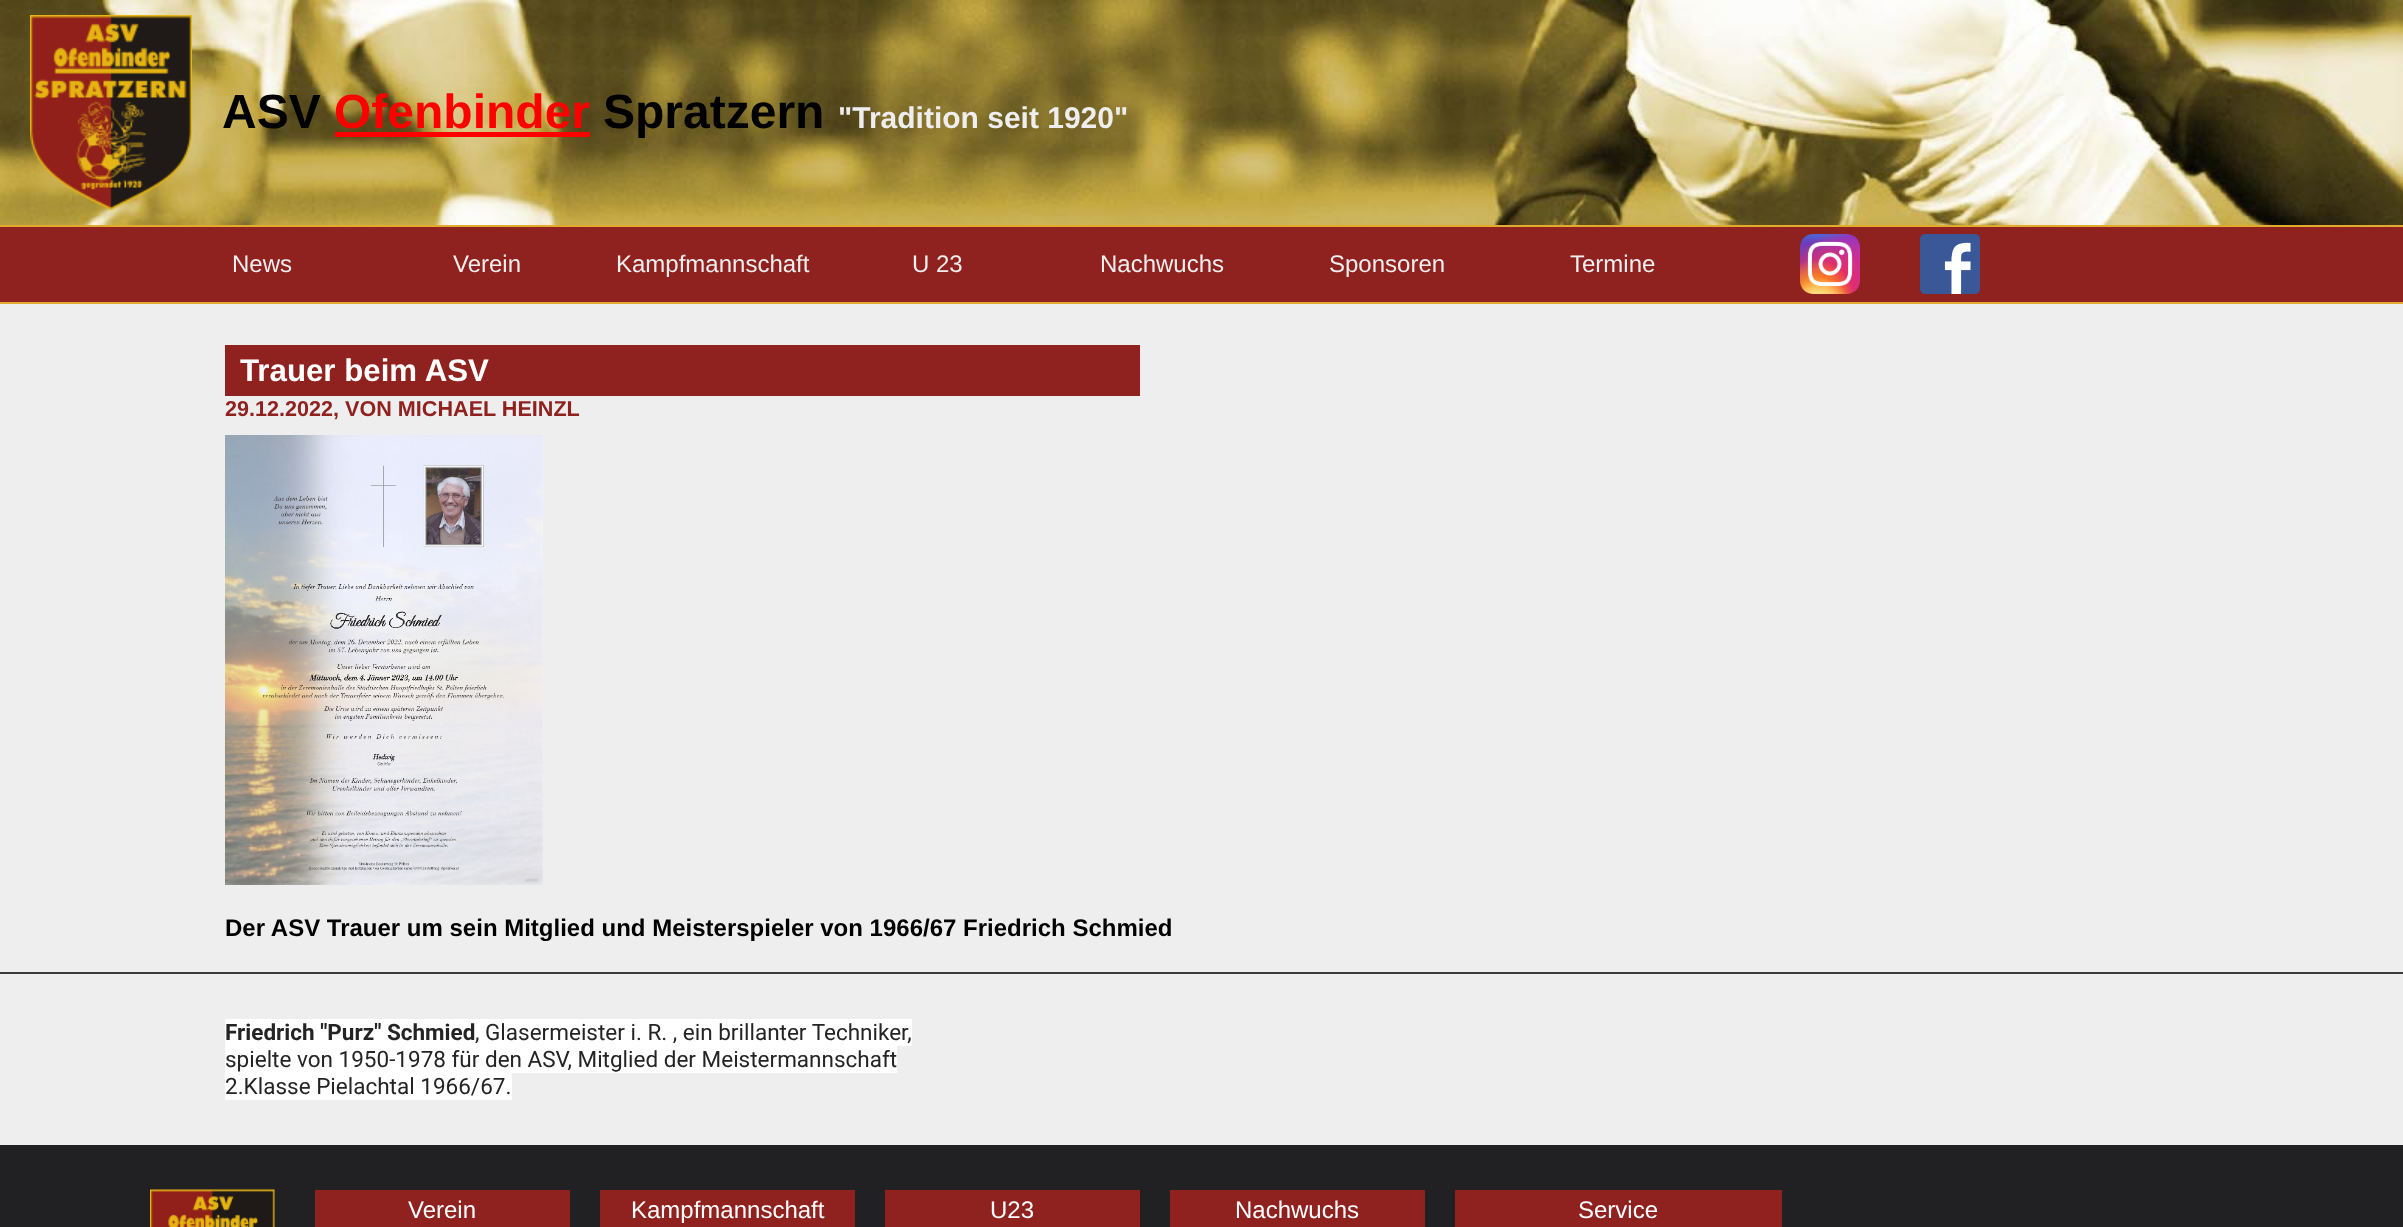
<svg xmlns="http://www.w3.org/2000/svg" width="2403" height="1227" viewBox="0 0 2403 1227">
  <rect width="100%" height="100%" fill="#eeeeee"/>
  <image x="0" y="0" width="2403" height="225" href="img1.png"/>
  <image x="30" y="15" width="162" height="195" href="img2.png"/>
  <text x="222" y="128" font-family="Liberation Sans" font-size="48" font-weight="bold" fill="#000000">ASV</text>
  <text x="334" y="128" font-family="Liberation Sans" font-size="48" font-weight="bold" fill="#ff0000">Ofenbinder</text>
  <rect x="335" y="132" width="255" height="5" fill="#ff0000"/>
  <text x="603" y="128" font-family="Liberation Sans" font-size="48" font-weight="bold" fill="#000000">Spratzern</text>
  <text x="838" y="128" font-family="Liberation Sans" font-size="30" font-weight="bold" fill="#eeeeee">"Tradition seit 1920"</text>
  <rect x="0" y="227" width="2403" height="75" fill="#8f211f"/>
  <rect x="0" y="225" width="2403" height="2" fill="#e2aa2e"/>
  <rect x="0" y="302" width="2403" height="2" fill="#e2aa2e"/>
  <text x="232" y="272" font-family="Liberation Sans" font-size="24" fill="#eeeeee">News</text>
  <text x="453" y="272" font-family="Liberation Sans" font-size="24" fill="#eeeeee">Verein</text>
  <text x="616" y="272" font-family="Liberation Sans" font-size="24" fill="#eeeeee">Kampfmannschaft</text>
  <text x="912" y="272" font-family="Liberation Sans" font-size="24" fill="#eeeeee">U 23</text>
  <text x="1100" y="272" font-family="Liberation Sans" font-size="24" fill="#eeeeee">Nachwuchs</text>
  <text x="1329" y="272" font-family="Liberation Sans" font-size="24" fill="#eeeeee">Sponsoren</text>
  <text x="1570" y="272" font-family="Liberation Sans" font-size="24" fill="#eeeeee">Termine</text>
  <image x="1800" y="234" width="60" height="60" href="img3.png"/>
  <image x="1920" y="234" width="60" height="60" href="img4.png"/>
  <rect x="225" y="345" width="915" height="51" fill="#8f211f"/>
  <text x="240" y="381" font-family="Liberation Sans" font-size="31.25" font-weight="bold" fill="#ffffff">Trauer beim ASV</text>
  <text x="225" y="416" font-family="Liberation Sans" font-size="21.6" font-weight="bold" fill="#8f211f">29.12.2022, VON MICHAEL HEINZL</text>
  <image x="225" y="435" width="318" height="450" href="img5.png"/>
  <text x="225" y="936" font-family="Liberation Sans" font-size="24" font-weight="bold" fill="#000000">Der ASV Trauer um sein Mitglied und Meisterspieler von 1966/67 Friedrich Schmied</text>
  <rect x="0" y="972" width="2403" height="2" fill="#3b3b3b"/>
  <rect x="225" y="1019" width="687" height="27" fill="#ffffff"/>
  <text x="225" y="1040" font-family="Roboto" font-size="22.5" font-weight="bold" fill="#242424">Friedrich "Purz" Schmied</text>
  <text x="475" y="1040" font-family="Roboto" font-size="22.5" fill="#242424">, Glasermeister i. R. , ein brillanter Techniker,</text>
  <rect x="225" y="1046" width="672" height="27" fill="#ffffff"/>
  <text x="225" y="1067" font-family="Roboto" font-size="22.5" fill="#242424">spielte von 1950-1978 für den ASV, Mitglied der Meistermannschaft</text>
  <rect x="225" y="1073" width="287" height="27" fill="#ffffff"/>
  <text x="225" y="1094" font-family="Roboto" font-size="22.5" fill="#242424">2.Klasse Pielachtal 1966/67.</text>
  <rect x="0" y="1145" width="2403" height="82" fill="#212123"/>
  <image x="150" y="1189" width="125" height="38" href="img6.png"/>
  <rect x="315" y="1190" width="255" height="37" fill="#8f211f"/>
  <text x="408" y="1218" font-family="Liberation Sans" font-size="24" fill="#ffffff">Verein</text>
  <rect x="600" y="1190" width="255" height="37" fill="#8f211f"/>
  <text x="631" y="1218" font-family="Liberation Sans" font-size="24" fill="#ffffff">Kampfmannschaft</text>
  <rect x="885" y="1190" width="255" height="37" fill="#8f211f"/>
  <text x="990" y="1218" font-family="Liberation Sans" font-size="24" fill="#ffffff">U23</text>
  <rect x="1170" y="1190" width="255" height="37" fill="#8f211f"/>
  <text x="1235" y="1218" font-family="Liberation Sans" font-size="24" fill="#ffffff">Nachwuchs</text>
  <rect x="1455" y="1190" width="327" height="37" fill="#8f211f"/>
  <text x="1578" y="1218" font-family="Liberation Sans" font-size="24" fill="#ffffff">Service</text>
</svg>
